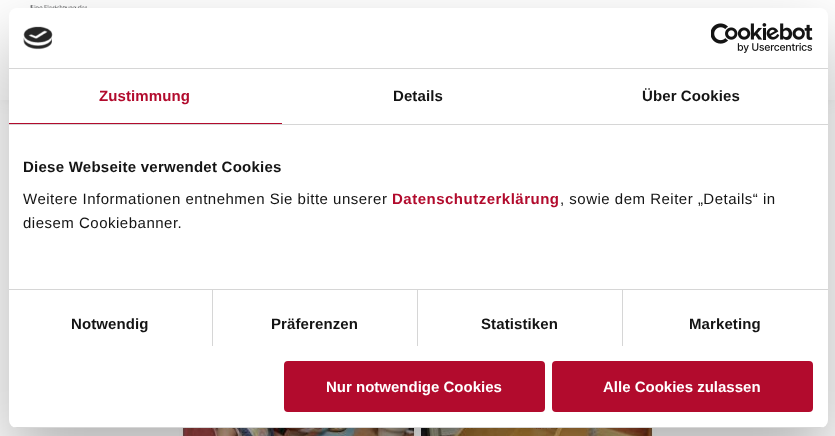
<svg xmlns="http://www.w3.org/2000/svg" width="835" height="436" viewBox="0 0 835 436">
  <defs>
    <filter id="blur1" x="-50%" y="-200%" width="200%" height="500%"><feGaussianBlur stdDeviation="7.5"/></filter>
    <filter id="blur2" x="-50%" y="-200%" width="200%" height="500%"><feGaussianBlur stdDeviation="34"/></filter>
    <clipPath id="clip1"><rect x="9" y="8" width="819" height="420" rx="8"/></clipPath>
  </defs>
  <rect width="100%" height="100%" fill="#ffffff"/>
  <rect x="-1" y="-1" width="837" height="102" fill="#000000" fill-opacity="0.07" filter="url(#blur1)"/>
  <rect x="0" y="0" width="835" height="100" fill="#ffffff"/>
  <image x="30" y="5" width="57" height="3" href="img1.png"/>
  <image x="178" y="428" width="479" height="8" href="img2.png"/>
  <rect x="9" y="40" width="819" height="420" rx="8" fill="#000000" fill-opacity="0.3" filter="url(#blur2)"/>
  <rect x="9" y="8" width="819" height="420" rx="8" fill="#ffffff"/>
  <rect x="9" y="68" width="819" height="1" fill="#d6d6d6"/>
  <image x="23" y="26" width="30" height="24" href="img3.png"/>
  <image x="711" y="23" width="102" height="30" href="img4.png"/>
  <rect x="9" y="124" width="819" height="1" fill="#d6d6d6"/>
  <rect x="9" y="123" width="273" height="1" fill="#b20b2d"/>
  <text x="99" y="101" font-family="Liberation Sans" font-size="15" font-weight="bold" letter-spacing="0.1" fill="#b20b2d">Zustimmung</text>
  <text x="393" y="101" font-family="Liberation Sans" font-size="15" font-weight="bold" letter-spacing="0.1" fill="#141414">Details</text>
  <text x="642" y="101" font-family="Liberation Sans" font-size="15" font-weight="bold" letter-spacing="0.1" fill="#141414">Über Cookies</text>
  <rect x="9" y="289" width="819" height="1" fill="#d6d6d6"/>
  <text x="23" y="172" font-family="Liberation Sans" font-size="15" font-weight="bold" letter-spacing="0.25" fill="#141414">Diese Webseite verwendet Cookies</text>
  <text x="23" y="204" font-family="Liberation Sans" font-size="15" letter-spacing="0.5" fill="#141414">Weitere Informationen entnehmen Sie bitte unserer</text>
  <text x="392" y="204" font-family="Liberation Sans" font-size="15" font-weight="bold" letter-spacing="0.5" fill="#b20b2d">Datenschutzerklärung</text>
  <text x="560" y="204" font-family="Liberation Sans" font-size="15" letter-spacing="0.5" fill="#141414">, sowie dem Reiter „Details“ in</text>
  <text x="23" y="228" font-family="Liberation Sans" font-size="15" letter-spacing="0.5" fill="#141414">diesem Cookiebanner.</text>
  <rect x="212" y="290" width="1" height="56" fill="#d6d6d6"/>
  <text x="71" y="329" font-family="Liberation Sans" font-size="15" font-weight="bold" letter-spacing="0.1" fill="#141414">Notwendig</text>
  <rect x="417" y="290" width="1" height="56" fill="#d6d6d6"/>
  <text x="271" y="329" font-family="Liberation Sans" font-size="15" font-weight="bold" letter-spacing="0.1" fill="#141414">Präferenzen</text>
  <rect x="622" y="290" width="1" height="56" fill="#d6d6d6"/>
  <text x="481" y="329" font-family="Liberation Sans" font-size="15" font-weight="bold" letter-spacing="0.1" fill="#141414">Statistiken</text>
  <text x="689" y="329" font-family="Liberation Sans" font-size="15" font-weight="bold" letter-spacing="0.1" fill="#141414">Marketing</text>
  <g clip-path="url(#clip1)">
    <rect x="9" y="427" width="819" height="1" fill="#d6d6d6"/>
  </g>
  <rect x="285" y="362" width="259" height="49" rx="3" fill="#b20b2d" stroke="#b20b2d" stroke-width="2"/>
  <text x="326" y="392" font-family="Liberation Sans" font-size="15" font-weight="bold" fill="#ffffff">Nur notwendige Cookies</text>
  <rect x="553" y="362" width="259" height="49" rx="3" fill="#b20b2d" stroke="#b20b2d" stroke-width="2"/>
  <text x="603" y="392" font-family="Liberation Sans" font-size="15" font-weight="bold" fill="#ffffff">Alle Cookies zulassen</text>
</svg>
